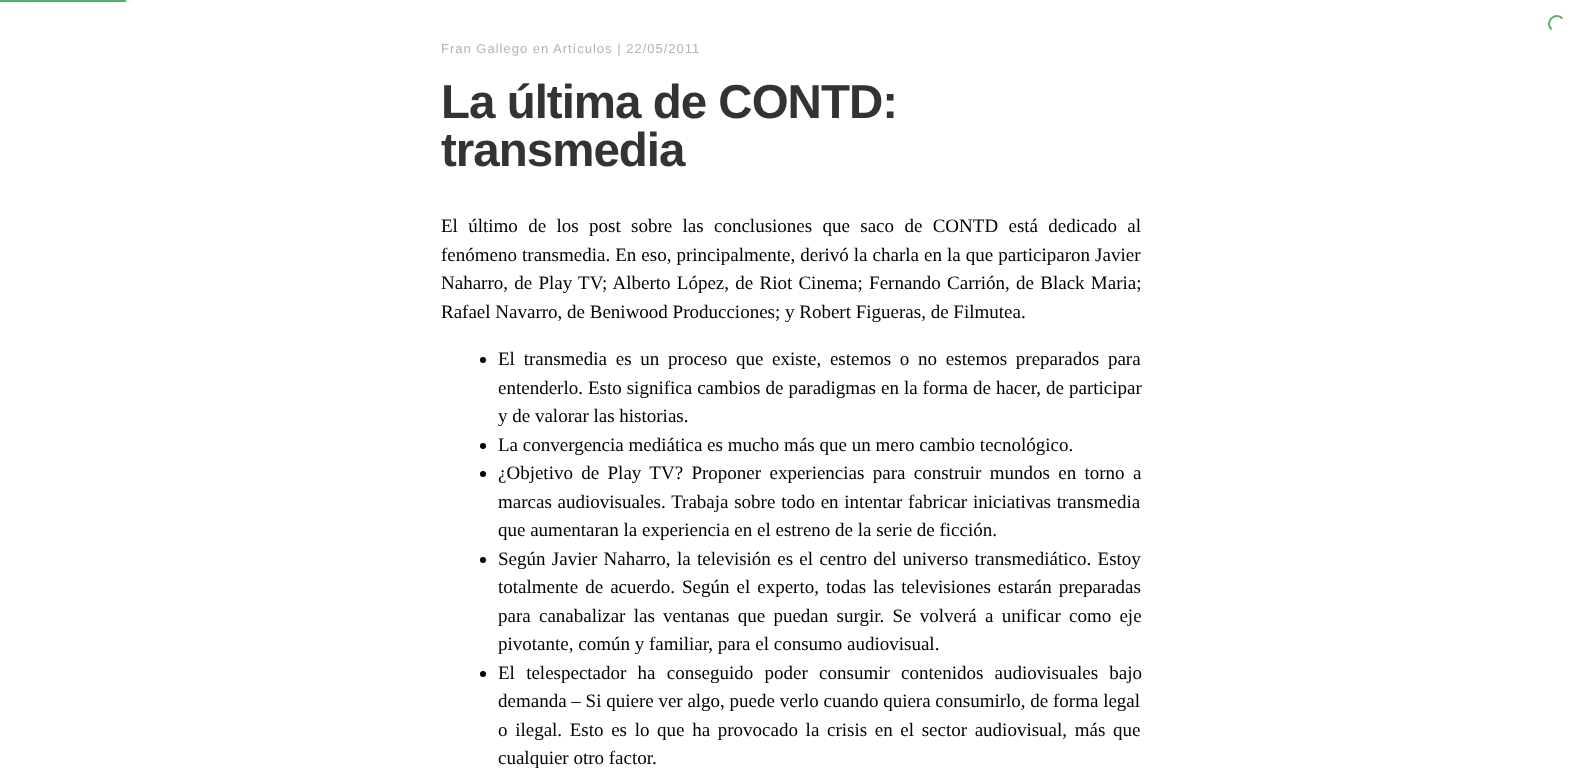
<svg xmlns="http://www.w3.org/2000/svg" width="1581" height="784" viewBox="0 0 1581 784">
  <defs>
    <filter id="blur1" x="-50%" y="-200%" width="200%" height="500%"><feGaussianBlur stdDeviation="2.5"/></filter>
    <filter id="blur2" x="-50%" y="-200%" width="200%" height="500%"><feGaussianBlur stdDeviation="5"/></filter>
  </defs>
  <rect width="100%" height="100%" fill="#ffffff"/>
  <rect x="0" y="0" width="126" height="2" fill="#57ad68"/>
  <rect x="27" y="-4" width="100" height="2" fill="#57ad68" filter="url(#blur1)"/>
  <rect x="27" y="-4" width="100" height="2" fill="#57ad68" filter="url(#blur2)"/>
  <path d="M1551.5 29.5C1544 22 1555 11 1562.5 18.5" fill="none" stroke="#57ad68" stroke-width="2"/>
  <text x="441" y="53" font-family="Liberation Sans" font-size="13" letter-spacing="1" fill="#b3b3b1">Fran Gallego en</text>
  <text x="553" y="53" font-family="Liberation Sans" font-size="13" letter-spacing="1" fill="#b3b3b1">Artículos | 22/05/2011</text>
  <text x="441" y="118" font-family="Liberation Sans" font-size="47.5" font-weight="bold" letter-spacing="-1" fill="#333332">La última de CONTD:</text>
  <text x="441" y="166" font-family="Liberation Sans" font-size="47.5" font-weight="bold" letter-spacing="-1" fill="#333332">transmedia</text>
  <text x="441" y="232" word-spacing="5.6" font-family="Liberation Serif" font-size="19" fill="#000000">El último de los post sobre las conclusiones que saco de CONTD está dedicado al</text>
  <text x="441" y="261" word-spacing="0.3" font-family="Liberation Serif" font-size="19" fill="#000000">fenómeno transmedia. En eso, principalmente, derivó la charla en la que participaron Javier</text>
  <text x="441" y="289" word-spacing="1.5" font-family="Liberation Serif" font-size="19" fill="#000000">Naharro, de Play TV; Alberto López, de Riot Cinema; Fernando Carrión, de Black Maria;</text>
  <text x="441" y="318" font-family="Liberation Serif" font-size="19" fill="#000000">Rafael Navarro, de Beniwood Producciones; y Robert Figueras, de Filmutea.</text>
  <circle cx="483" cy="360" r="3" fill="#000000"/>
  <text x="498" y="365" word-spacing="4" font-family="Liberation Serif" font-size="19" fill="#000000">El transmedia es un proceso que existe, estemos o no estemos preparados para</text>
  <text x="498" y="394" word-spacing="0.25" font-family="Liberation Serif" font-size="19" fill="#000000">entenderlo. Esto significa cambios de paradigmas en la forma de hacer, de participar</text>
  <text x="498" y="422" font-family="Liberation Serif" font-size="19" fill="#000000">y de valorar las historias.</text>
  <circle cx="483" cy="446" r="3" fill="#000000"/>
  <text x="498" y="451" font-family="Liberation Serif" font-size="19" fill="#000000">La convergencia mediática es mucho más que un mero cambio tecnológico.</text>
  <circle cx="483" cy="474" r="3" fill="#000000"/>
  <text x="498" y="479" word-spacing="3.6" font-family="Liberation Serif" font-size="19" fill="#000000">¿Objetivo de Play TV? Proponer experiencias para construir mundos en torno a</text>
  <text x="498" y="508" word-spacing="1" font-family="Liberation Serif" font-size="19" fill="#000000">marcas audiovisuales. Trabaja sobre todo en intentar fabricar iniciativas transmedia</text>
  <text x="498" y="536" font-family="Liberation Serif" font-size="19" fill="#000000">que aumentaran la experiencia en el estreno de la serie de ficción.</text>
  <circle cx="483" cy="560" r="3" fill="#000000"/>
  <text x="498" y="565" word-spacing="1.6" font-family="Liberation Serif" font-size="19" fill="#000000">Según Javier Naharro, la televisión es el centro del universo transmediático. Estoy</text>
  <text x="498" y="593" word-spacing="2.25" font-family="Liberation Serif" font-size="19" fill="#000000">totalmente de acuerdo. Según el experto, todas las televisiones estarán preparadas</text>
  <text x="498" y="622" word-spacing="3.5" font-family="Liberation Serif" font-size="19" fill="#000000">para canabalizar las ventanas que puedan surgir. Se volverá a unificar como eje</text>
  <text x="498" y="650" font-family="Liberation Serif" font-size="19" fill="#000000">pivotante, común y familiar, para el consumo audiovisual.</text>
  <circle cx="483" cy="674" r="3" fill="#000000"/>
  <text x="498" y="679" word-spacing="6.5" font-family="Liberation Serif" font-size="19" fill="#000000">El telespectador ha conseguido poder consumir contenidos audiovisuales bajo</text>
  <text x="498" y="707" font-family="Liberation Serif" font-size="19" fill="#000000">demanda – Si quiere ver algo, puede verlo cuando quiera consumirlo, de forma legal</text>
  <text x="498" y="736" word-spacing="2.9" font-family="Liberation Serif" font-size="19" fill="#000000">o ilegal. Esto es lo que ha provocado la crisis en el sector audiovisual, más que</text>
  <text x="498" y="764" font-family="Liberation Serif" font-size="19" fill="#000000">cualquier otro factor.</text>
</svg>
